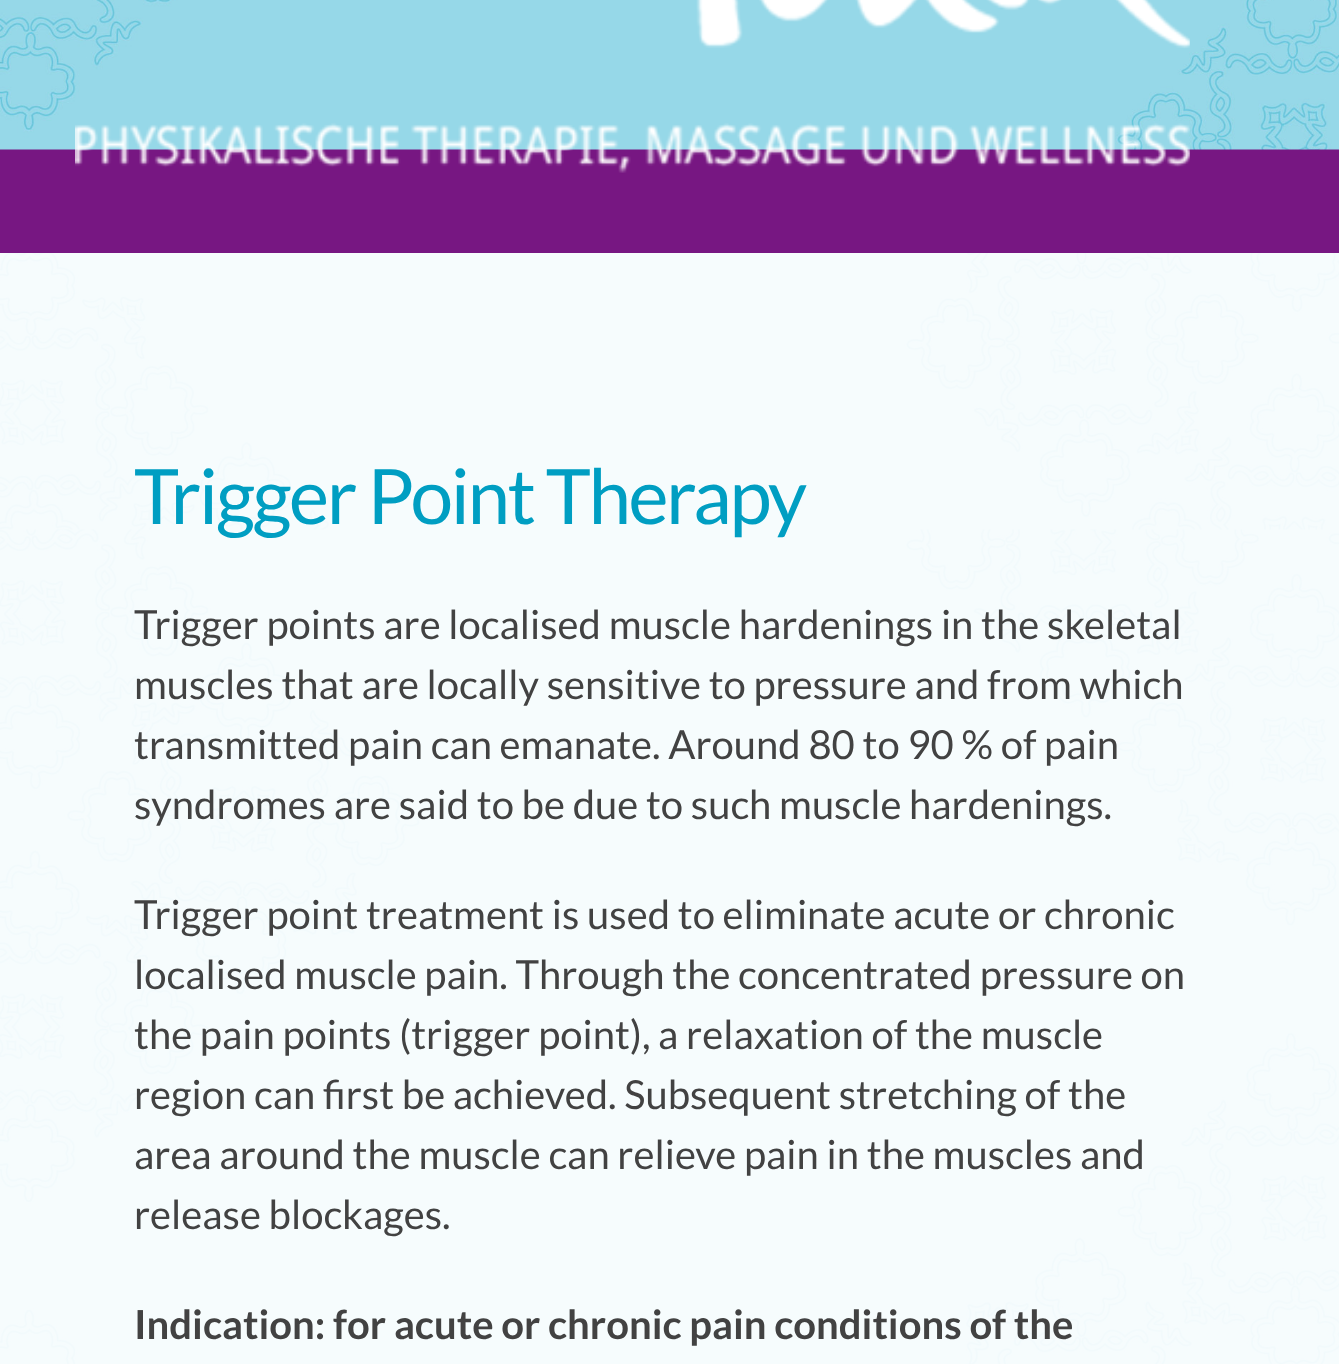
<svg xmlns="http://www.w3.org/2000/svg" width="1339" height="1364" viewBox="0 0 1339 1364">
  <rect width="100%" height="100%" fill="#ffffff"/>
  <image x="0" y="253" width="1339" height="1111" href="img1.png"/>
  <rect x="0" y="149" width="1339" height="104" fill="#771782"/>
  <image x="0" y="0" width="1339" height="150" href="img2.png"/>
  <image x="75" y="0" width="1115" height="173" href="img3.png"/>
  <rect x="0" y="253" width="1339" height="1111" fill="#ffffff" fill-opacity="0.7"/>
  <text x="134" y="524" font-family="Lato" font-size="76.5" letter-spacing="-2.5" fill="#009ec2">Trigger Point Therapy</text>
  <text x="134" y="639" font-family="Lato" font-size="40" fill="#424242">Trigger points are localised muscle hardenings in the skeletal</text>
  <text x="134" y="699" font-family="Lato" font-size="40" fill="#424242">muscles that are locally sensitive to pressure and from which</text>
  <text x="134" y="759" font-family="Lato" font-size="40" fill="#424242">transmitted pain can emanate. Around 80 to 90 % of pain</text>
  <text x="134" y="819" font-family="Lato" font-size="40" fill="#424242">syndromes are said to be due to such muscle hardenings.</text>
  <text x="134" y="929" font-family="Lato" font-size="40" fill="#424242">Trigger point treatment is used to eliminate acute or chronic</text>
  <text x="134" y="989" font-family="Lato" font-size="40" fill="#424242">localised muscle pain. Through the concentrated pressure on</text>
  <text x="134" y="1049" font-family="Lato" font-size="40" fill="#424242">the pain points (trigger point), a relaxation of the muscle</text>
  <text x="134" y="1109" font-family="Lato" font-size="40" fill="#424242">region can first be achieved. Subsequent stretching of the</text>
  <text x="134" y="1169" font-family="Lato" font-size="40" fill="#424242">area around the muscle can relieve pain in the muscles and</text>
  <text x="134" y="1229" font-family="Lato" font-size="40" fill="#424242">release blockages.</text>
  <text x="134" y="1339" font-family="Lato" font-size="40" font-weight="bold" fill="#424242">Indication: for acute or chronic pain conditions of the</text>
</svg>
